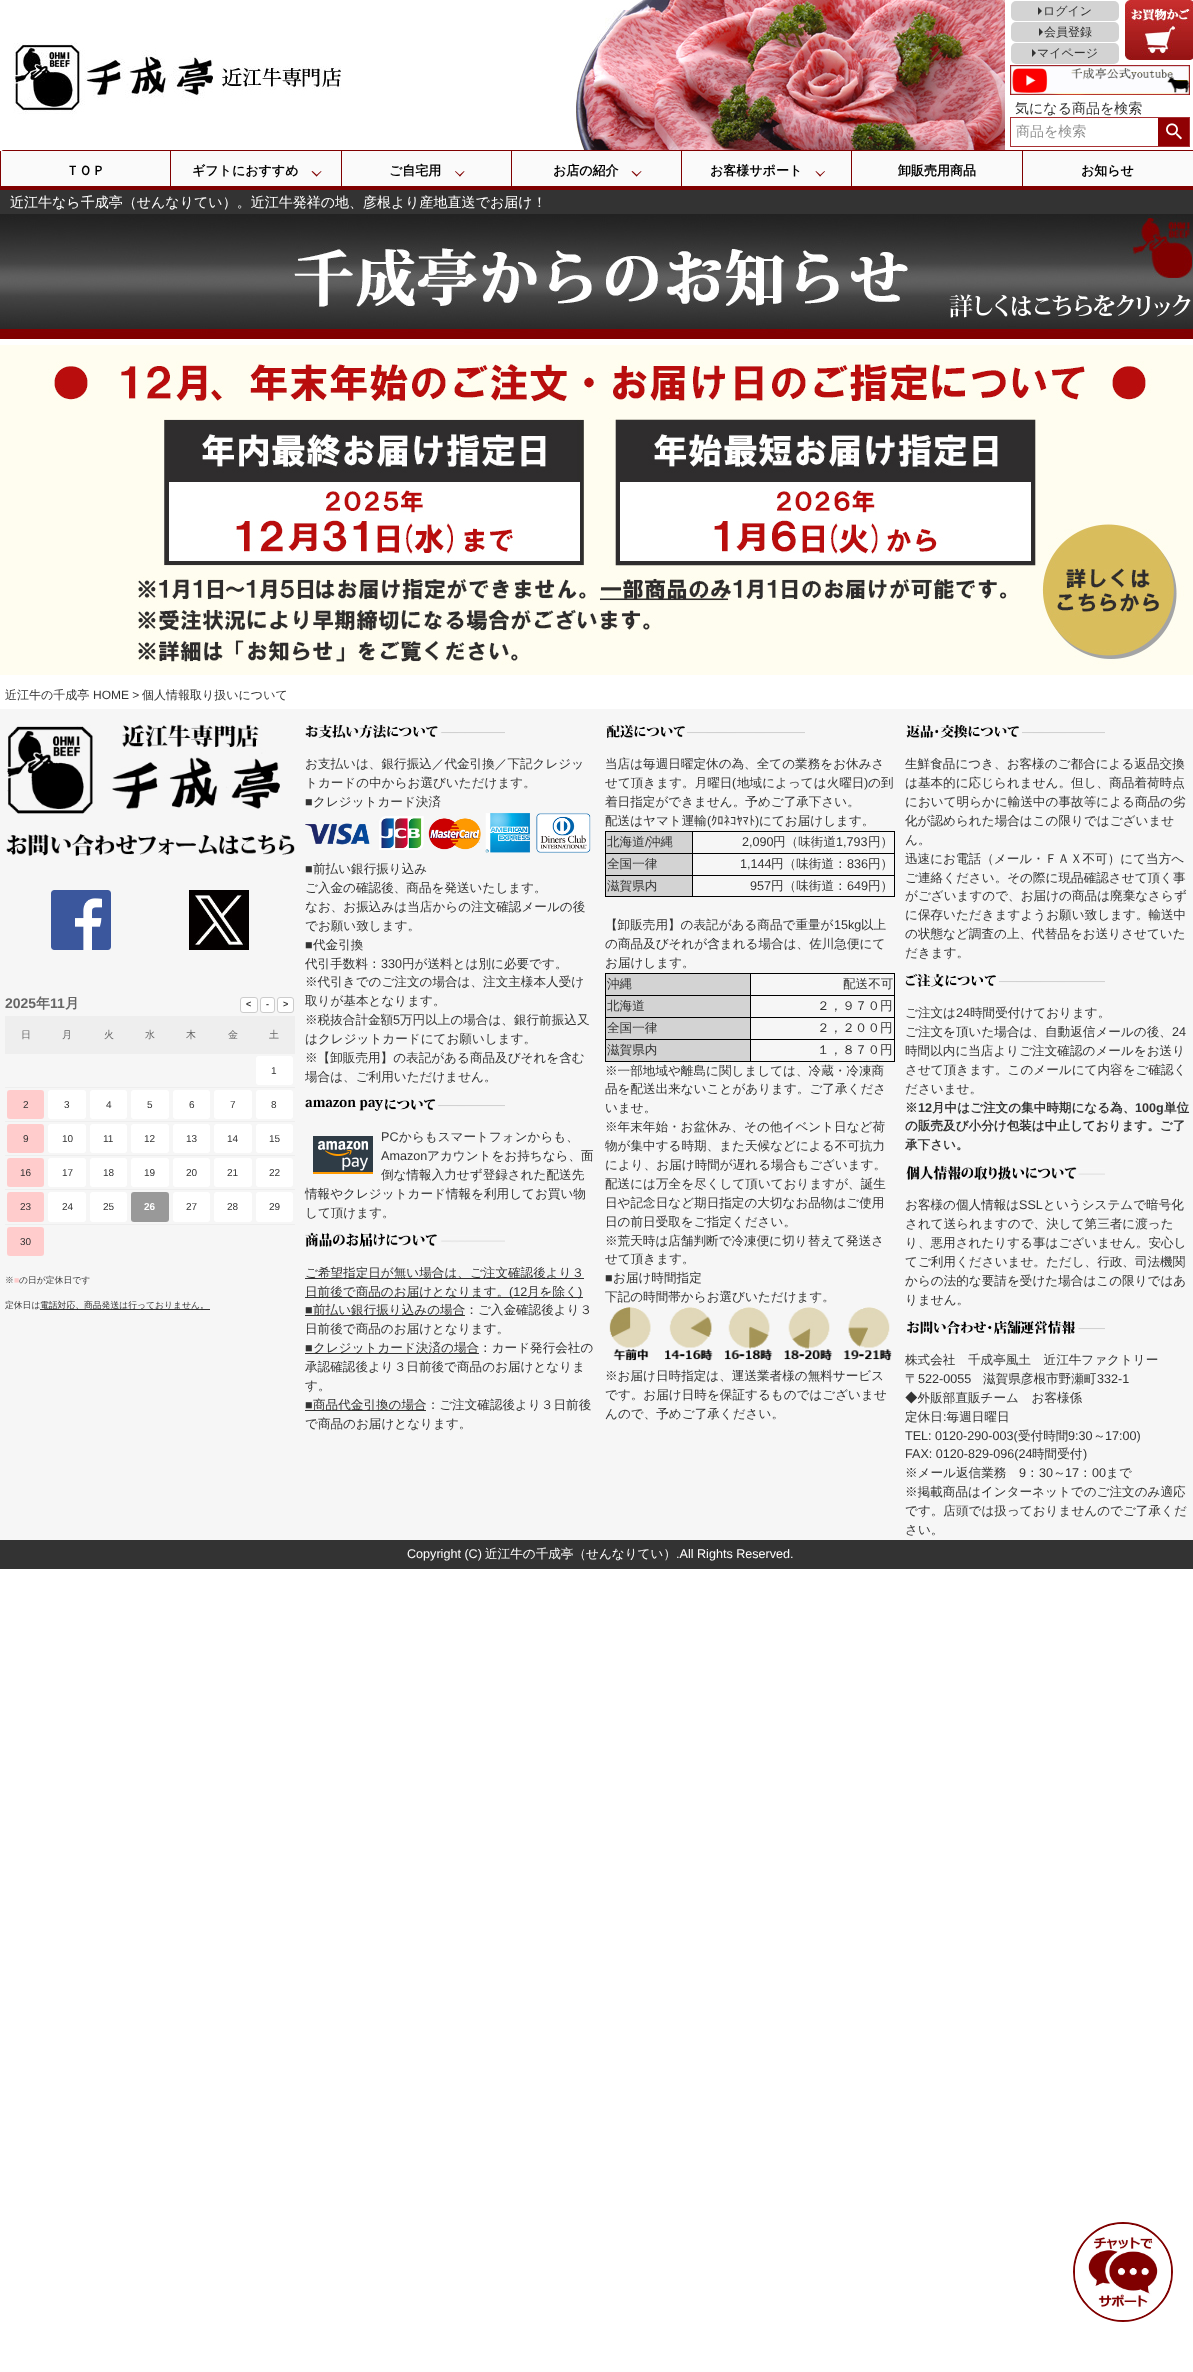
<svg xmlns="http://www.w3.org/2000/svg" width="1193" height="2372" viewBox="0 0 1193 2372">
  <rect width="100%" height="100%" fill="#ffffff"/>
  <image x="13" y="0" width="992" height="150" href="img1.png"/>
  <rect x="1011" y="1" width="108" height="20" rx="5" fill="#d3d3d3"/>
  <path d="M1038 15V7L1042 11Z" fill="#333333"/>
  <text x="1043" y="15" font-family="WenQuanYi Zen Hei" font-size="12" font-weight="500" fill="#333333">ログイン</text>
  <rect x="1011" y="22" width="108" height="20" rx="5" fill="#d3d3d3"/>
  <path d="M1039 36V28L1043 32Z" fill="#333333"/>
  <text x="1044" y="36" font-family="WenQuanYi Zen Hei" font-size="12" font-weight="500" fill="#333333">会員登録</text>
  <rect x="1011" y="43" width="108" height="21" rx="5" fill="#d3d3d3"/>
  <path d="M1032 57V49L1036 53Z" fill="#333333"/>
  <text x="1037" y="57" font-family="WenQuanYi Zen Hei" font-size="12" font-weight="500" fill="#333333">マイページ</text>
  <image x="1125" y="0" width="68" height="60" href="img2.png"/>
  <image x="1010" y="65" width="180" height="30" href="img3.png"/>
  <text x="1015" y="113" font-family="WenQuanYi Zen Hei" font-size="14" font-weight="500" fill="#333333">気になる商品を検索</text>
  <rect x="1010" y="117" width="180" height="30" fill="#a83134"/>
  <rect x="1011" y="118" width="147" height="28" fill="#ffffff"/>
  <text x="1016" y="136" font-family="WenQuanYi Zen Hei" font-size="14" font-weight="500" fill="#919191">商品を検索</text>
  <rect x="1158" y="118" width="31" height="28" fill="#900003"/>
  <image x="1166" y="123" width="16" height="17" href="img4.png"/>
  <path d="M4 150H1193C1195 150 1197 152 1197 154V190H0V154C0 152 2 150 4 150Z" fill="#fafafa"/>
  <path d="M4 150H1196C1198 150 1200 152 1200 154V190H0V154C0 152 2 150 4 150ZM4 151H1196C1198 151 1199 152 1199 154V186H0V154C0 152 2 151 4 151Z" fill="#800000" fill-rule="evenodd"/>
  <rect x="1" y="151" width="3" height="1" fill="#fafafa"/>
  <rect x="0" y="151" width="1" height="35" fill="#800000"/>
  <text x="66" y="175" font-family="WenQuanYi Zen Hei" font-size="13" font-weight="bold" fill="#000000">ＴＯＰ</text>
  <rect x="170" y="151" width="1" height="35" fill="#800000"/>
  <text x="192" y="175" font-family="WenQuanYi Zen Hei" font-size="13" font-weight="bold" fill="#000000">ギフトにおすすめ</text>
  <path d="M321 171L321.5 171.5L316.5 176.5L316 175.5Z" fill="#800000"/>
  <path d="M312.5 171L317.5 175.5L316.5 176.5L311.5 171.5Z" fill="#800000"/>
  <rect x="341" y="151" width="1" height="35" fill="#800000"/>
  <text x="389" y="175" font-family="WenQuanYi Zen Hei" font-size="13" font-weight="bold" fill="#000000">ご自宅用</text>
  <path d="M464 171L464.5 171.5L460 176.5L459 175.5Z" fill="#800000"/>
  <path d="M455.5 171L460.5 175.5L460 176.5L455 171.5Z" fill="#800000"/>
  <rect x="511" y="151" width="1" height="35" fill="#800000"/>
  <text x="553" y="175" font-family="WenQuanYi Zen Hei" font-size="13" font-weight="bold" fill="#000000">お店の紹介</text>
  <path d="M641 171L641.5 171.5L636.5 176.5L636 175.5Z" fill="#800000"/>
  <path d="M632.5 171L637.5 175.5L636.5 176.5L631.5 171.5Z" fill="#800000"/>
  <rect x="681" y="151" width="1" height="35" fill="#800000"/>
  <text x="710" y="175" font-family="WenQuanYi Zen Hei" font-size="13" font-weight="bold" fill="#000000">お客様サポート</text>
  <path d="M824.5 171L825 171.5L820 176.5L819.5 175.5Z" fill="#800000"/>
  <path d="M816 171L821 175.5L820 176.5L815.5 171.5Z" fill="#800000"/>
  <rect x="851" y="151" width="1" height="35" fill="#800000"/>
  <text x="898" y="175" font-family="WenQuanYi Zen Hei" font-size="13" font-weight="bold" fill="#000000">卸販売用商品</text>
  <rect x="1022" y="151" width="1" height="35" fill="#800000"/>
  <text x="1081" y="175" font-family="WenQuanYi Zen Hei" font-size="13" font-weight="bold" fill="#000000">お知らせ</text>
  <rect x="0" y="190" width="1193" height="24" fill="#333333"/>
  <text x="10" y="207" font-family="WenQuanYi Zen Hei" font-size="14" font-weight="500" fill="#ffffff">近江牛なら千成亭（せんなりてい）。近江牛発祥の地、彦根より産地直送でお届け！</text>
  <image x="0" y="214" width="1193" height="125" href="img5.png"/>
  <image x="0" y="345" width="1193" height="330" href="img6.png"/>
  <text x="5" y="699" font-family="WenQuanYi Zen Hei" font-size="12" font-weight="500" fill="#333333">近江牛の千成亭</text>
  <text x="93" y="699" font-family="Liberation Sans" font-size="12" fill="#333333">HOME &gt;</text>
  <text x="142" y="699" font-family="WenQuanYi Zen Hei" font-size="12" font-weight="500" fill="#333333">個人情報取り扱いについて</text>
  <rect x="0" y="709" width="1193" height="831" fill="#f6f6f6"/>
  <image x="7" y="724" width="273" height="90" href="img7.png"/>
  <image x="6" y="834" width="289" height="22" href="img8.png"/>
  <image x="51" y="890" width="60" height="60" href="img9.png"/>
  <image x="189" y="890" width="60" height="60" href="img10.png"/>
  <text x="5" y="1008" font-family="Liberation Sans" font-size="14" font-weight="bold" fill="#666666">2025</text>
  <text x="36" y="1008" font-family="WenQuanYi Zen Hei" font-size="14" font-weight="bold" fill="#666666">年</text>
  <text x="50" y="1008" font-family="Liberation Sans" font-size="14" font-weight="bold" fill="#666666">11</text>
  <text x="65" y="1008" font-family="WenQuanYi Zen Hei" font-size="14" font-weight="bold" fill="#666666">月</text>
  <rect x="240.5" y="997.5" width="17" height="15" rx="2.5" fill="#ffffff" stroke="#cccccc"/>
  <text x="246" y="1007" font-family="Liberation Sans" font-size="9" font-weight="bold" fill="#333333">&lt;</text>
  <rect x="260.5" y="997.5" width="14" height="15" rx="2.5" fill="#ffffff" stroke="#cccccc"/>
  <text x="266" y="1007" font-family="Liberation Sans" font-size="9" font-weight="bold" fill="#333333">-</text>
  <rect x="277.5" y="997.5" width="16" height="15" rx="2.5" fill="#ffffff" stroke="#cccccc"/>
  <text x="283" y="1007" font-family="Liberation Sans" font-size="9" font-weight="bold" fill="#333333">&gt;</text>
  <rect x="5" y="1016" width="290" height="37" fill="#eeeeee"/>
  <text x="21" y="1038" font-family="WenQuanYi Zen Hei" font-size="10" font-weight="500" fill="#666666">日</text>
  <text x="62" y="1038" font-family="WenQuanYi Zen Hei" font-size="10" font-weight="500" fill="#666666">月</text>
  <text x="104" y="1038" font-family="WenQuanYi Zen Hei" font-size="10" font-weight="500" fill="#666666">火</text>
  <text x="145" y="1038" font-family="WenQuanYi Zen Hei" font-size="10" font-weight="500" fill="#666666">水</text>
  <text x="186" y="1038" font-family="WenQuanYi Zen Hei" font-size="10" font-weight="500" fill="#666666">木</text>
  <text x="228" y="1038" font-family="WenQuanYi Zen Hei" font-size="10" font-weight="500" fill="#666666">金</text>
  <text x="269" y="1038" font-family="WenQuanYi Zen Hei" font-size="10" font-weight="500" fill="#666666">土</text>
  <rect x="5" y="1053" width="290" height="1" fill="#eeeeee"/>
  <rect x="256" y="1056" width="37" height="29" rx="3" fill="#ffffff"/>
  <text x="271" y="1074" font-family="Liberation Sans" font-size="10" fill="#333333">1</text>
  <rect x="5" y="1087" width="290" height="1" fill="#eeeeee"/>
  <rect x="7" y="1090" width="37" height="29" rx="3" fill="#ffcccc"/>
  <text x="23" y="1108" font-family="Liberation Sans" font-size="10" fill="#333333">2</text>
  <rect x="48" y="1090" width="38" height="29" rx="3" fill="#ffffff"/>
  <text x="64" y="1108" font-family="Liberation Sans" font-size="10" fill="#333333">3</text>
  <rect x="90" y="1090" width="37" height="29" rx="3" fill="#ffffff"/>
  <text x="106" y="1108" font-family="Liberation Sans" font-size="10" fill="#333333">4</text>
  <rect x="131" y="1090" width="38" height="29" rx="3" fill="#ffffff"/>
  <text x="147" y="1108" font-family="Liberation Sans" font-size="10" fill="#333333">5</text>
  <rect x="173" y="1090" width="37" height="29" rx="3" fill="#ffffff"/>
  <text x="189" y="1108" font-family="Liberation Sans" font-size="10" fill="#333333">6</text>
  <rect x="214" y="1090" width="38" height="29" rx="3" fill="#ffffff"/>
  <text x="230" y="1108" font-family="Liberation Sans" font-size="10" fill="#333333">7</text>
  <rect x="256" y="1090" width="37" height="29" rx="3" fill="#ffffff"/>
  <text x="271" y="1108" font-family="Liberation Sans" font-size="10" fill="#333333">8</text>
  <rect x="5" y="1121" width="290" height="1" fill="#eeeeee"/>
  <rect x="7" y="1124" width="37" height="29" rx="3" fill="#ffcccc"/>
  <text x="23" y="1142" font-family="Liberation Sans" font-size="10" fill="#333333">9</text>
  <rect x="48" y="1124" width="38" height="29" rx="3" fill="#ffffff"/>
  <text x="62" y="1142" font-family="Liberation Sans" font-size="10" fill="#333333">10</text>
  <rect x="90" y="1124" width="37" height="29" rx="3" fill="#ffffff"/>
  <text x="103" y="1142" font-family="Liberation Sans" font-size="10" fill="#333333">11</text>
  <rect x="131" y="1124" width="38" height="29" rx="3" fill="#ffffff"/>
  <text x="144" y="1142" font-family="Liberation Sans" font-size="10" fill="#333333">12</text>
  <rect x="173" y="1124" width="37" height="29" rx="3" fill="#ffffff"/>
  <text x="186" y="1142" font-family="Liberation Sans" font-size="10" fill="#333333">13</text>
  <rect x="214" y="1124" width="38" height="29" rx="3" fill="#ffffff"/>
  <text x="227" y="1142" font-family="Liberation Sans" font-size="10" fill="#333333">14</text>
  <rect x="256" y="1124" width="37" height="29" rx="3" fill="#ffffff"/>
  <text x="269" y="1142" font-family="Liberation Sans" font-size="10" fill="#333333">15</text>
  <rect x="5" y="1155" width="290" height="1" fill="#eeeeee"/>
  <rect x="7" y="1158" width="37" height="29" rx="3" fill="#ffcccc"/>
  <text x="20" y="1176" font-family="Liberation Sans" font-size="10" fill="#333333">16</text>
  <rect x="48" y="1158" width="38" height="29" rx="3" fill="#ffffff"/>
  <text x="62" y="1176" font-family="Liberation Sans" font-size="10" fill="#333333">17</text>
  <rect x="90" y="1158" width="37" height="29" rx="3" fill="#ffffff"/>
  <text x="103" y="1176" font-family="Liberation Sans" font-size="10" fill="#333333">18</text>
  <rect x="131" y="1158" width="38" height="29" rx="3" fill="#ffffff"/>
  <text x="144" y="1176" font-family="Liberation Sans" font-size="10" fill="#333333">19</text>
  <rect x="173" y="1158" width="37" height="29" rx="3" fill="#ffffff"/>
  <text x="186" y="1176" font-family="Liberation Sans" font-size="10" fill="#333333">20</text>
  <rect x="214" y="1158" width="38" height="29" rx="3" fill="#ffffff"/>
  <text x="227" y="1176" font-family="Liberation Sans" font-size="10" fill="#333333">21</text>
  <rect x="256" y="1158" width="37" height="29" rx="3" fill="#ffffff"/>
  <text x="269" y="1176" font-family="Liberation Sans" font-size="10" fill="#333333">22</text>
  <rect x="5" y="1189" width="290" height="1" fill="#eeeeee"/>
  <rect x="7" y="1192" width="37" height="30" rx="3" fill="#ffcccc"/>
  <text x="20" y="1210" font-family="Liberation Sans" font-size="10" fill="#333333">23</text>
  <rect x="48" y="1192" width="38" height="30" rx="3" fill="#ffffff"/>
  <text x="62" y="1210" font-family="Liberation Sans" font-size="10" fill="#333333">24</text>
  <rect x="90" y="1192" width="37" height="30" rx="3" fill="#ffffff"/>
  <text x="103" y="1210" font-family="Liberation Sans" font-size="10" fill="#333333">25</text>
  <rect x="131" y="1192" width="38" height="30" rx="3" fill="#999999"/>
  <text x="144" y="1210" font-family="Liberation Sans" font-size="10" font-weight="bold" fill="#ffffff">26</text>
  <rect x="173" y="1192" width="37" height="30" rx="3" fill="#ffffff"/>
  <text x="186" y="1210" font-family="Liberation Sans" font-size="10" fill="#333333">27</text>
  <rect x="214" y="1192" width="38" height="30" rx="3" fill="#ffffff"/>
  <text x="227" y="1210" font-family="Liberation Sans" font-size="10" fill="#333333">28</text>
  <rect x="256" y="1192" width="37" height="30" rx="3" fill="#ffffff"/>
  <text x="269" y="1210" font-family="Liberation Sans" font-size="10" fill="#333333">29</text>
  <rect x="5" y="1224" width="290" height="1" fill="#eeeeee"/>
  <rect x="7" y="1227" width="37" height="29" rx="3" fill="#ffcccc"/>
  <text x="20" y="1245" font-family="Liberation Sans" font-size="10" fill="#333333">30</text>
  <text x="5" y="1283" font-family="WenQuanYi Zen Hei" font-size="8.8" font-weight="500" fill="#333333">※</text>
  <text x="14" y="1283" font-family="Liberation Sans" font-size="8.8" fill="#ffcccc">■</text>
  <text x="19" y="1283" font-family="WenQuanYi Zen Hei" font-size="8.8" font-weight="500" fill="#333333">の日が定休日です</text>
  <text x="5" y="1308" font-family="WenQuanYi Zen Hei" font-size="8.8" font-weight="500" fill="#333333">定休日は</text>
  <rect x="40" y="1309" width="170" height="1" fill="#333333"/>
  <text x="40" y="1308" font-family="WenQuanYi Zen Hei" font-size="8.8" font-weight="500" fill="#333333">電話対応、商品発送は行っておりません。</text>
  <image x="305" y="724" width="200" height="14" href="img11.png"/>
  <text x="305" y="768" font-family="WenQuanYi Zen Hei" font-size="12.6" font-weight="500" fill="#333333">お支払いは、銀行振込／代金引換／下記クレジッ</text>
  <text x="305" y="787" font-family="WenQuanYi Zen Hei" font-size="12.6" font-weight="500" fill="#333333">トカードの中からお選びいただけます。</text>
  <text x="305" y="806" font-family="Liberation Sans" font-size="12.6" fill="#333333">■</text>
  <text x="313" y="806" font-family="WenQuanYi Zen Hei" font-size="12.6" font-weight="500" fill="#333333">クレジットカード決済</text>
  <image x="305" y="813" width="286" height="40" href="img12.png"/>
  <text x="305" y="873" font-family="Liberation Sans" font-size="12.6" fill="#333333">■</text>
  <text x="313" y="873" font-family="WenQuanYi Zen Hei" font-size="12.6" font-weight="500" fill="#333333">前払い銀行振り込み</text>
  <text x="305" y="892" font-family="WenQuanYi Zen Hei" font-size="12.6" font-weight="500" fill="#333333">ご入金の確認後、商品を発送いたします。</text>
  <text x="305" y="911" font-family="WenQuanYi Zen Hei" font-size="12.6" font-weight="500" fill="#333333">なお、お振込みは当店からの注文確認メールの後</text>
  <text x="305" y="930" font-family="WenQuanYi Zen Hei" font-size="12.6" font-weight="500" fill="#333333">でお願い致します。</text>
  <text x="305" y="949" font-family="Liberation Sans" font-size="12.6" fill="#333333">■</text>
  <text x="313" y="949" font-family="WenQuanYi Zen Hei" font-size="12.6" font-weight="500" fill="#333333">代金引換</text>
  <text x="305" y="968" font-family="WenQuanYi Zen Hei" font-size="12.6" font-weight="500" fill="#333333">代引手数料：</text>
  <text x="381" y="968" font-family="Liberation Sans" font-size="12.6" fill="#333333">330</text>
  <text x="402" y="968" font-family="WenQuanYi Zen Hei" font-size="12.6" font-weight="500" fill="#333333">円が送料とは別に必要です。</text>
  <text x="305" y="986" font-family="WenQuanYi Zen Hei" font-size="12.6" font-weight="500" fill="#333333">※代引きでのご注文の場合は、注文主様本人受け</text>
  <text x="305" y="1005" font-family="WenQuanYi Zen Hei" font-size="12.6" font-weight="500" fill="#333333">取りが基本となります。</text>
  <text x="305" y="1024" font-family="WenQuanYi Zen Hei" font-size="12.6" font-weight="500" fill="#333333">※税抜合計金額</text>
  <text x="393" y="1024" font-family="Liberation Sans" font-size="12.6" fill="#333333">5</text>
  <text x="400" y="1024" font-family="WenQuanYi Zen Hei" font-size="12.6" font-weight="500" fill="#333333">万円以上の場合は、銀行前振込又</text>
  <text x="305" y="1043" font-family="WenQuanYi Zen Hei" font-size="12.6" font-weight="500" fill="#333333">はクレジットカードにてお願いします。</text>
  <text x="305" y="1062" font-family="WenQuanYi Zen Hei" font-size="12.6" font-weight="500" fill="#333333">※【卸販売用】の表記がある商品及びそれを含む</text>
  <text x="305" y="1081" font-family="WenQuanYi Zen Hei" font-size="12.6" font-weight="500" fill="#333333">場合は、ご利用いただけません。</text>
  <image x="305" y="1099" width="200" height="12" href="img13.png"/>
  <image x="313" y="1136" width="60" height="38" href="img14.png"/>
  <text x="381" y="1141" font-family="Liberation Sans" font-size="12.6" fill="#333333">PC</text>
  <text x="399" y="1141" font-family="WenQuanYi Zen Hei" font-size="12.6" font-weight="500" fill="#333333">からもスマートフォンからも、</text>
  <text x="381" y="1160" font-family="Liberation Sans" font-size="12.6" fill="#333333">Amazon</text>
  <text x="427" y="1160" font-family="WenQuanYi Zen Hei" font-size="12.6" font-weight="500" fill="#333333">アカウントをお持ちなら、面</text>
  <text x="381" y="1179" font-family="WenQuanYi Zen Hei" font-size="12.6" font-weight="500" fill="#333333">倒な情報入力せず登録された配送先</text>
  <text x="305" y="1198" font-family="WenQuanYi Zen Hei" font-size="12.6" font-weight="500" fill="#333333">情報やクレジットカード情報を利用してお買い物</text>
  <text x="305" y="1217" font-family="WenQuanYi Zen Hei" font-size="12.6" font-weight="500" fill="#333333">して頂けます。</text>
  <image x="305" y="1232" width="200" height="15" href="img15.png"/>
  <rect x="305" y="1278" width="279" height="1" fill="#333333"/>
  <text x="305" y="1277" font-family="WenQuanYi Zen Hei" font-size="12.6" font-weight="500" fill="#333333">ご希望指定日が無い場合は、ご注文確認後より３</text>
  <rect x="305" y="1297" width="278" height="1" fill="#333333"/>
  <text x="305" y="1296" font-family="WenQuanYi Zen Hei" font-size="12.6" font-weight="500" fill="#333333">日前後で商品のお届けとなります。</text>
  <text x="509" y="1296" font-family="Liberation Sans" font-size="12.6" fill="#333333">(12</text>
  <text x="527" y="1296" font-family="WenQuanYi Zen Hei" font-size="12.6" font-weight="500" fill="#333333">月を除く</text>
  <text x="578" y="1296" font-family="Liberation Sans" font-size="12.6" fill="#333333">)</text>
  <text x="305" y="1314" font-family="Liberation Sans" font-size="12.6" fill="#333333">■</text>
  <rect x="305" y="1315" width="160" height="1" fill="#333333"/>
  <text x="313" y="1314" font-family="WenQuanYi Zen Hei" font-size="12.6" font-weight="500" fill="#333333">前払い銀行振り込みの場合：ご入金確認後より３</text>
  <text x="305" y="1333" font-family="WenQuanYi Zen Hei" font-size="12.6" font-weight="500" fill="#333333">日前後で商品のお届けとなります。</text>
  <text x="305" y="1352" font-family="Liberation Sans" font-size="12.6" fill="#333333">■</text>
  <rect x="305" y="1353" width="174" height="1" fill="#333333"/>
  <text x="313" y="1352" font-family="WenQuanYi Zen Hei" font-size="12.6" font-weight="500" fill="#333333">クレジットカード決済の場合：カード発行会社の</text>
  <text x="305" y="1371" font-family="WenQuanYi Zen Hei" font-size="12.6" font-weight="500" fill="#333333">承認確認後より３日前後で商品のお届けとなりま</text>
  <text x="305" y="1390" font-family="WenQuanYi Zen Hei" font-size="12.6" font-weight="500" fill="#333333">す。</text>
  <text x="305" y="1409" font-family="Liberation Sans" font-size="12.6" fill="#333333">■</text>
  <rect x="305" y="1410" width="121" height="1" fill="#333333"/>
  <text x="313" y="1409" font-family="WenQuanYi Zen Hei" font-size="12.6" font-weight="500" fill="#333333">商品代金引換の場合：ご注文確認後より３日前後</text>
  <text x="305" y="1428" font-family="WenQuanYi Zen Hei" font-size="12.6" font-weight="500" fill="#333333">で商品のお届けとなります。</text>
  <image x="606" y="724" width="199" height="14" href="img16.png"/>
  <text x="605" y="768" font-family="WenQuanYi Zen Hei" font-size="12.6" font-weight="500" fill="#333333">当店は毎週日曜定休の為、全ての業務をお休みさ</text>
  <text x="605" y="787" font-family="WenQuanYi Zen Hei" font-size="12.6" font-weight="500" fill="#333333">せて頂きます。月曜日</text>
  <text x="732" y="787" font-family="Liberation Sans" font-size="12.6" fill="#333333">(</text>
  <text x="737" y="787" font-family="WenQuanYi Zen Hei" font-size="12.6" font-weight="500" fill="#333333">地域によっては火曜日</text>
  <text x="864" y="787" font-family="Liberation Sans" font-size="12.6" fill="#333333">)</text>
  <text x="868" y="787" font-family="WenQuanYi Zen Hei" font-size="12.6" font-weight="500" fill="#333333">の到</text>
  <text x="605" y="806" font-family="WenQuanYi Zen Hei" font-size="12.6" font-weight="500" fill="#333333">着日指定ができません。予めご了承下さい。</text>
  <text x="605" y="825" font-family="WenQuanYi Zen Hei" font-size="12.6" font-weight="500" fill="#333333">配送はヤマト運輸</text>
  <text x="707" y="825" font-family="Liberation Sans" font-size="12.6" fill="#333333">(</text>
  <text x="711" y="825" font-family="IPAPGothic" font-size="12.6" fill="#333333">ｸﾛﾈｺﾔﾏﾄ</text>
  <text x="755" y="825" font-family="Liberation Sans" font-size="12.6" fill="#333333">)</text>
  <text x="759" y="825" font-family="WenQuanYi Zen Hei" font-size="12.6" font-weight="500" fill="#333333">にてお届けします。</text>
  <rect x="605" y="831" width="290" height="66" fill="#000000"/>
  <rect x="606" y="832" width="86" height="21" fill="#d3d3d3"/>
  <text x="607" y="846" font-family="WenQuanYi Zen Hei" font-size="12.6" font-weight="500" fill="#333333">北海道</text>
  <text x="645" y="846" font-family="Liberation Sans" font-size="12.6" fill="#333333">/</text>
  <text x="648" y="846" font-family="WenQuanYi Zen Hei" font-size="12.6" font-weight="500" fill="#333333">沖縄</text>
  <rect x="693" y="832" width="201" height="21" fill="#f6f6f6"/>
  <text x="742" y="846" font-family="Liberation Sans" font-size="12.6" fill="#333333">2,090</text>
  <text x="773" y="846" font-family="WenQuanYi Zen Hei" font-size="12.6" font-weight="500" fill="#333333">円（味街道</text>
  <text x="836" y="846" font-family="Liberation Sans" font-size="12.6" fill="#333333">1,793</text>
  <text x="868" y="846" font-family="WenQuanYi Zen Hei" font-size="12.6" font-weight="500" fill="#333333">円）</text>
  <rect x="606" y="854" width="86" height="21" fill="#d3d3d3"/>
  <text x="607" y="868" font-family="WenQuanYi Zen Hei" font-size="12.6" font-weight="500" fill="#333333">全国一律</text>
  <rect x="693" y="854" width="201" height="21" fill="#f6f6f6"/>
  <text x="740" y="868" font-family="Liberation Sans" font-size="12.6" fill="#333333">1,144</text>
  <text x="771" y="868" font-family="WenQuanYi Zen Hei" font-size="12.6" font-weight="500" fill="#333333">円（味街道：</text>
  <text x="847" y="868" font-family="Liberation Sans" font-size="12.6" fill="#333333">836</text>
  <text x="868" y="868" font-family="WenQuanYi Zen Hei" font-size="12.6" font-weight="500" fill="#333333">円）</text>
  <rect x="606" y="876" width="86" height="20" fill="#d3d3d3"/>
  <text x="607" y="890" font-family="WenQuanYi Zen Hei" font-size="12.6" font-weight="500" fill="#333333">滋賀県内</text>
  <rect x="693" y="876" width="201" height="20" fill="#f6f6f6"/>
  <text x="750" y="890" font-family="Liberation Sans" font-size="12.6" fill="#333333">957</text>
  <text x="771" y="890" font-family="WenQuanYi Zen Hei" font-size="12.6" font-weight="500" fill="#333333">円（味街道：</text>
  <text x="847" y="890" font-family="Liberation Sans" font-size="12.6" fill="#333333">649</text>
  <text x="868" y="890" font-family="WenQuanYi Zen Hei" font-size="12.6" font-weight="500" fill="#333333">円）</text>
  <text x="605" y="929" font-family="WenQuanYi Zen Hei" font-size="12.6" font-weight="500" fill="#333333">【卸販売用】の表記がある商品で重量が</text>
  <text x="834" y="929" font-family="Liberation Sans" font-size="12.6" fill="#333333">15kg</text>
  <text x="861" y="929" font-family="WenQuanYi Zen Hei" font-size="12.6" font-weight="500" fill="#333333">以上</text>
  <text x="605" y="948" font-family="WenQuanYi Zen Hei" font-size="12.6" font-weight="500" fill="#333333">の商品及びそれが含まれる場合は、佐川急便にて</text>
  <text x="605" y="967" font-family="WenQuanYi Zen Hei" font-size="12.6" font-weight="500" fill="#333333">お届けします。</text>
  <rect x="605" y="973" width="290" height="89" fill="#000000"/>
  <rect x="606" y="974" width="144" height="21" fill="#d3d3d3"/>
  <text x="607" y="988" font-family="WenQuanYi Zen Hei" font-size="12.6" font-weight="500" fill="#333333">沖縄</text>
  <rect x="751" y="974" width="143" height="21" fill="#f6f6f6"/>
  <text x="843" y="988" font-family="WenQuanYi Zen Hei" font-size="12.6" font-weight="500" fill="#333333">配送不可</text>
  <rect x="606" y="996" width="144" height="21" fill="#d3d3d3"/>
  <text x="607" y="1010" font-family="WenQuanYi Zen Hei" font-size="12.6" font-weight="500" fill="#333333">北海道</text>
  <rect x="751" y="996" width="143" height="21" fill="#f6f6f6"/>
  <text x="817" y="1010" font-family="WenQuanYi Zen Hei" font-size="12.6" font-weight="500" fill="#333333">２，９７０円</text>
  <rect x="606" y="1018" width="144" height="21" fill="#d3d3d3"/>
  <text x="607" y="1032" font-family="WenQuanYi Zen Hei" font-size="12.6" font-weight="500" fill="#333333">全国一律</text>
  <rect x="751" y="1018" width="143" height="21" fill="#f6f6f6"/>
  <text x="817" y="1032" font-family="WenQuanYi Zen Hei" font-size="12.6" font-weight="500" fill="#333333">２，２００円</text>
  <rect x="606" y="1040" width="144" height="21" fill="#d3d3d3"/>
  <text x="607" y="1054" font-family="WenQuanYi Zen Hei" font-size="12.6" font-weight="500" fill="#333333">滋賀県内</text>
  <rect x="751" y="1040" width="143" height="21" fill="#f6f6f6"/>
  <text x="817" y="1054" font-family="WenQuanYi Zen Hei" font-size="12.6" font-weight="500" fill="#333333">１，８７０円</text>
  <text x="605" y="1075" font-family="WenQuanYi Zen Hei" font-size="12.6" font-weight="500" fill="#333333">※一部地域や離島に関しましては、冷蔵・冷凍商</text>
  <text x="605" y="1093" font-family="WenQuanYi Zen Hei" font-size="12.6" font-weight="500" fill="#333333">品を配送出来ないことがあります。ご了承くださ</text>
  <text x="605" y="1112" font-family="WenQuanYi Zen Hei" font-size="12.6" font-weight="500" fill="#333333">いませ。</text>
  <text x="605" y="1131" font-family="WenQuanYi Zen Hei" font-size="12.6" font-weight="500" fill="#333333">※年末年始・お盆休み、その他イベント日など荷</text>
  <text x="605" y="1150" font-family="WenQuanYi Zen Hei" font-size="12.6" font-weight="500" fill="#333333">物が集中する時期、また天候などによる不可抗力</text>
  <text x="605" y="1169" font-family="WenQuanYi Zen Hei" font-size="12.6" font-weight="500" fill="#333333">により、お届け時間が遅れる場合もございます。</text>
  <text x="605" y="1188" font-family="WenQuanYi Zen Hei" font-size="12.6" font-weight="500" fill="#333333">配送には万全を尽くして頂いておりますが、誕生</text>
  <text x="605" y="1207" font-family="WenQuanYi Zen Hei" font-size="12.6" font-weight="500" fill="#333333">日や記念日など期日指定の大切なお品物はご使用</text>
  <text x="605" y="1226" font-family="WenQuanYi Zen Hei" font-size="12.6" font-weight="500" fill="#333333">日の前日受取をご指定ください。</text>
  <text x="605" y="1245" font-family="WenQuanYi Zen Hei" font-size="12.6" font-weight="500" fill="#333333">※荒天時は店舗判断で冷凍便に切り替えて発送さ</text>
  <text x="605" y="1263" font-family="WenQuanYi Zen Hei" font-size="12.6" font-weight="500" fill="#333333">せて頂きます。</text>
  <text x="605" y="1282" font-family="Liberation Sans" font-size="12.6" fill="#333333">■</text>
  <text x="613" y="1282" font-family="WenQuanYi Zen Hei" font-size="12.6" font-weight="500" fill="#333333">お届け時間指定</text>
  <text x="605" y="1301" font-family="WenQuanYi Zen Hei" font-size="12.6" font-weight="500" fill="#333333">下記の時間帯からお選びいただけます。</text>
  <image x="609" y="1307" width="283" height="54" href="img17.png"/>
  <text x="605" y="1380" font-family="WenQuanYi Zen Hei" font-size="12.6" font-weight="500" fill="#333333">※お届け日時指定は、運送業者様の無料サービス</text>
  <text x="605" y="1399" font-family="WenQuanYi Zen Hei" font-size="12.6" font-weight="500" fill="#333333">です。お届け日時を保証するものではございませ</text>
  <text x="605" y="1418" font-family="WenQuanYi Zen Hei" font-size="12.6" font-weight="500" fill="#333333">んので、予めご了承ください。</text>
  <image x="906" y="724" width="199" height="14" href="img18.png"/>
  <text x="905" y="768" font-family="WenQuanYi Zen Hei" font-size="12.6" font-weight="500" fill="#333333">生鮮食品につき、お客様のご都合による返品交換</text>
  <text x="905" y="787" font-family="WenQuanYi Zen Hei" font-size="12.6" font-weight="500" fill="#333333">は基本的に応じられません。但し、商品着荷時点</text>
  <text x="905" y="806" font-family="WenQuanYi Zen Hei" font-size="12.6" font-weight="500" fill="#333333">において明らかに輸送中の事故等による商品の劣</text>
  <text x="905" y="825" font-family="WenQuanYi Zen Hei" font-size="12.6" font-weight="500" fill="#333333">化が認められた場合はこの限りではございませ</text>
  <text x="905" y="844" font-family="WenQuanYi Zen Hei" font-size="12.6" font-weight="500" fill="#333333">ん。</text>
  <text x="905" y="863" font-family="WenQuanYi Zen Hei" font-size="12.6" font-weight="500" fill="#333333">迅速にお電話（メール・ＦＡＸ不可）にて当方へ</text>
  <text x="905" y="882" font-family="WenQuanYi Zen Hei" font-size="12.6" font-weight="500" fill="#333333">ご連絡ください。その際に現品確認させて頂く事</text>
  <text x="905" y="900" font-family="WenQuanYi Zen Hei" font-size="12.6" font-weight="500" fill="#333333">がございますので、お届けの商品は廃棄なさらず</text>
  <text x="905" y="919" font-family="WenQuanYi Zen Hei" font-size="12.6" font-weight="500" fill="#333333">に保存いただきますようお願い致します。輸送中</text>
  <text x="905" y="938" font-family="WenQuanYi Zen Hei" font-size="12.6" font-weight="500" fill="#333333">の状態など調査の上、代替品をお送りさせていた</text>
  <text x="905" y="957" font-family="WenQuanYi Zen Hei" font-size="12.6" font-weight="500" fill="#333333">だきます。</text>
  <image x="905" y="973" width="200" height="14" href="img19.png"/>
  <text x="905" y="1017" font-family="WenQuanYi Zen Hei" font-size="12.6" font-weight="500" fill="#333333">ご注文は</text>
  <text x="956" y="1017" font-family="Liberation Sans" font-size="12.6" fill="#333333">24</text>
  <text x="970" y="1017" font-family="WenQuanYi Zen Hei" font-size="12.6" font-weight="500" fill="#333333">時間受付けております。</text>
  <text x="905" y="1036" font-family="WenQuanYi Zen Hei" font-size="12.6" font-weight="500" fill="#333333">ご注文を頂いた場合は、自動返信メールの後、</text>
  <text x="1172" y="1036" font-family="Liberation Sans" font-size="12.6" fill="#333333">24</text>
  <text x="905" y="1055" font-family="WenQuanYi Zen Hei" font-size="12.6" font-weight="500" fill="#333333">時間以内に当店よりご注文確認のメールをお送り</text>
  <text x="905" y="1074" font-family="WenQuanYi Zen Hei" font-size="12.6" font-weight="500" fill="#333333">させて頂きます。このメールにて内容をご確認く</text>
  <text x="905" y="1093" font-family="WenQuanYi Zen Hei" font-size="12.6" font-weight="500" fill="#333333">ださいませ。</text>
  <text x="905" y="1112" font-family="WenQuanYi Zen Hei" font-size="12.6" font-weight="bold" fill="#333333">※</text>
  <text x="918" y="1112" font-family="Liberation Sans" font-size="12.6" font-weight="bold" fill="#333333">12</text>
  <text x="932" y="1112" font-family="WenQuanYi Zen Hei" font-size="12.6" font-weight="bold" fill="#333333">月中はご注文の集中時期になる為、</text>
  <text x="1135" y="1112" font-family="Liberation Sans" font-size="12.6" font-weight="bold" fill="#333333">100g</text>
  <text x="1164" y="1112" font-family="WenQuanYi Zen Hei" font-size="12.6" font-weight="bold" fill="#333333">単位</text>
  <text x="905" y="1130" font-family="WenQuanYi Zen Hei" font-size="12.6" font-weight="bold" fill="#333333">の販売及び小分け包装は中止しております。ご了</text>
  <text x="905" y="1149" font-family="WenQuanYi Zen Hei" font-size="12.6" font-weight="bold" fill="#333333">承下さい。</text>
  <image x="906" y="1165" width="199" height="15" href="img20.png"/>
  <text x="905" y="1209" font-family="WenQuanYi Zen Hei" font-size="12.6" font-weight="500" fill="#333333">お客様の個人情報は</text>
  <text x="1019" y="1209" font-family="Liberation Sans" font-size="12.6" fill="#333333">SSL</text>
  <text x="1043" y="1209" font-family="WenQuanYi Zen Hei" font-size="12.6" font-weight="500" fill="#333333">というシステムで暗号化</text>
  <text x="905" y="1228" font-family="WenQuanYi Zen Hei" font-size="12.6" font-weight="500" fill="#333333">されて送られますので、決して第三者に渡った</text>
  <text x="905" y="1247" font-family="WenQuanYi Zen Hei" font-size="12.6" font-weight="500" fill="#333333">り、悪用されたりする事はございません。安心し</text>
  <text x="905" y="1266" font-family="WenQuanYi Zen Hei" font-size="12.6" font-weight="500" fill="#333333">てご利用くださいませ。ただし、行政、司法機関</text>
  <text x="905" y="1285" font-family="WenQuanYi Zen Hei" font-size="12.6" font-weight="500" fill="#333333">からの法的な要請を受けた場合はこの限りではあ</text>
  <text x="905" y="1304" font-family="WenQuanYi Zen Hei" font-size="12.6" font-weight="500" fill="#333333">りません。</text>
  <image x="907" y="1320" width="198" height="15" href="img21.png"/>
  <text x="905" y="1364" font-family="WenQuanYi Zen Hei" font-size="12.6" font-weight="500" fill="#333333">株式会社　千成亭風土　近江牛ファクトリー</text>
  <text x="905" y="1383" font-family="WenQuanYi Zen Hei" font-size="12.6" font-weight="500" fill="#333333">〒</text>
  <text x="918" y="1383" font-family="Liberation Sans" font-size="12.6" fill="#333333">522-0055</text>
  <text x="983" y="1383" font-family="WenQuanYi Zen Hei" font-size="12.6" font-weight="500" fill="#333333">滋賀県彦根市野瀬町</text>
  <text x="1097" y="1383" font-family="Liberation Sans" font-size="12.6" fill="#333333">332-1</text>
  <text x="905" y="1402" font-family="WenQuanYi Zen Hei" font-size="12.6" font-weight="500" fill="#333333">◆外販部直販チーム　お客様係</text>
  <text x="905" y="1421" font-family="WenQuanYi Zen Hei" font-size="12.6" font-weight="500" fill="#333333">定休日 毎週日曜日</text>
  <text x="943" y="1421" font-family="Liberation Sans" font-size="12.6" fill="#333333">:</text>
  <text x="905" y="1440" font-family="Liberation Sans" font-size="12.6" fill="#333333">TEL: 0120-290-003(</text>
  <text x="1018" y="1440" font-family="WenQuanYi Zen Hei" font-size="12.6" font-weight="500" fill="#333333">受付時間</text>
  <text x="1068" y="1440" font-family="Liberation Sans" font-size="12.6" fill="#333333">9:30</text>
  <text x="1093" y="1440" font-family="WenQuanYi Zen Hei" font-size="12.6" font-weight="500" fill="#333333">～</text>
  <text x="1105" y="1440" font-family="Liberation Sans" font-size="12.6" fill="#333333">17:00)</text>
  <text x="905" y="1458" font-family="Liberation Sans" font-size="12.6" fill="#333333">FAX: 0120-829-096(24</text>
  <text x="1032" y="1458" font-family="WenQuanYi Zen Hei" font-size="12.6" font-weight="500" fill="#333333">時間受付</text>
  <text x="1083" y="1458" font-family="Liberation Sans" font-size="12.6" fill="#333333">)</text>
  <text x="905" y="1477" font-family="WenQuanYi Zen Hei" font-size="12.6" font-weight="500" fill="#333333">※メール返信業務</text>
  <text x="1019" y="1477" font-family="Liberation Sans" font-size="12.6" fill="#333333">9</text>
  <text x="1026" y="1477" font-family="WenQuanYi Zen Hei" font-size="12.6" font-weight="500" fill="#333333">：</text>
  <text x="1039" y="1477" font-family="Liberation Sans" font-size="12.6" fill="#333333">30</text>
  <text x="1053" y="1477" font-family="WenQuanYi Zen Hei" font-size="12.6" font-weight="500" fill="#333333">～</text>
  <text x="1065" y="1477" font-family="Liberation Sans" font-size="12.6" fill="#333333">17</text>
  <text x="1079" y="1477" font-family="WenQuanYi Zen Hei" font-size="12.6" font-weight="500" fill="#333333">：</text>
  <text x="1092" y="1477" font-family="Liberation Sans" font-size="12.6" fill="#333333">00</text>
  <text x="1106" y="1477" font-family="WenQuanYi Zen Hei" font-size="12.6" font-weight="500" fill="#333333">まで</text>
  <text x="905" y="1496" font-family="WenQuanYi Zen Hei" font-size="12.6" font-weight="500" fill="#333333">※掲載商品はインターネットでのご注文のみ適応</text>
  <text x="905" y="1515" font-family="WenQuanYi Zen Hei" font-size="12.6" font-weight="500" fill="#333333">です。店頭では扱っておりませんのでご了承くだ</text>
  <text x="905" y="1534" font-family="WenQuanYi Zen Hei" font-size="12.6" font-weight="500" fill="#333333">さい。</text>
  <rect x="0" y="1540" width="1193" height="29" fill="#333333"/>
  <text x="407" y="1558" font-family="Liberation Sans" font-size="12.6" fill="#ffffff">Copyright (C)</text>
  <text x="485" y="1558" font-family="WenQuanYi Zen Hei" font-size="12.6" font-weight="500" fill="#ffffff">近江牛の千成亭（せんなりてい）</text>
  <text x="676" y="1558" font-family="Liberation Sans" font-size="12.6" fill="#ffffff">.All Rights Reserved.</text>
  <circle cx="1123" cy="2272" r="49" fill="none" stroke="#800000" stroke-width="2"/>
  <image x="1075" y="2224" width="96" height="96" href="img22.png"/>
</svg>
